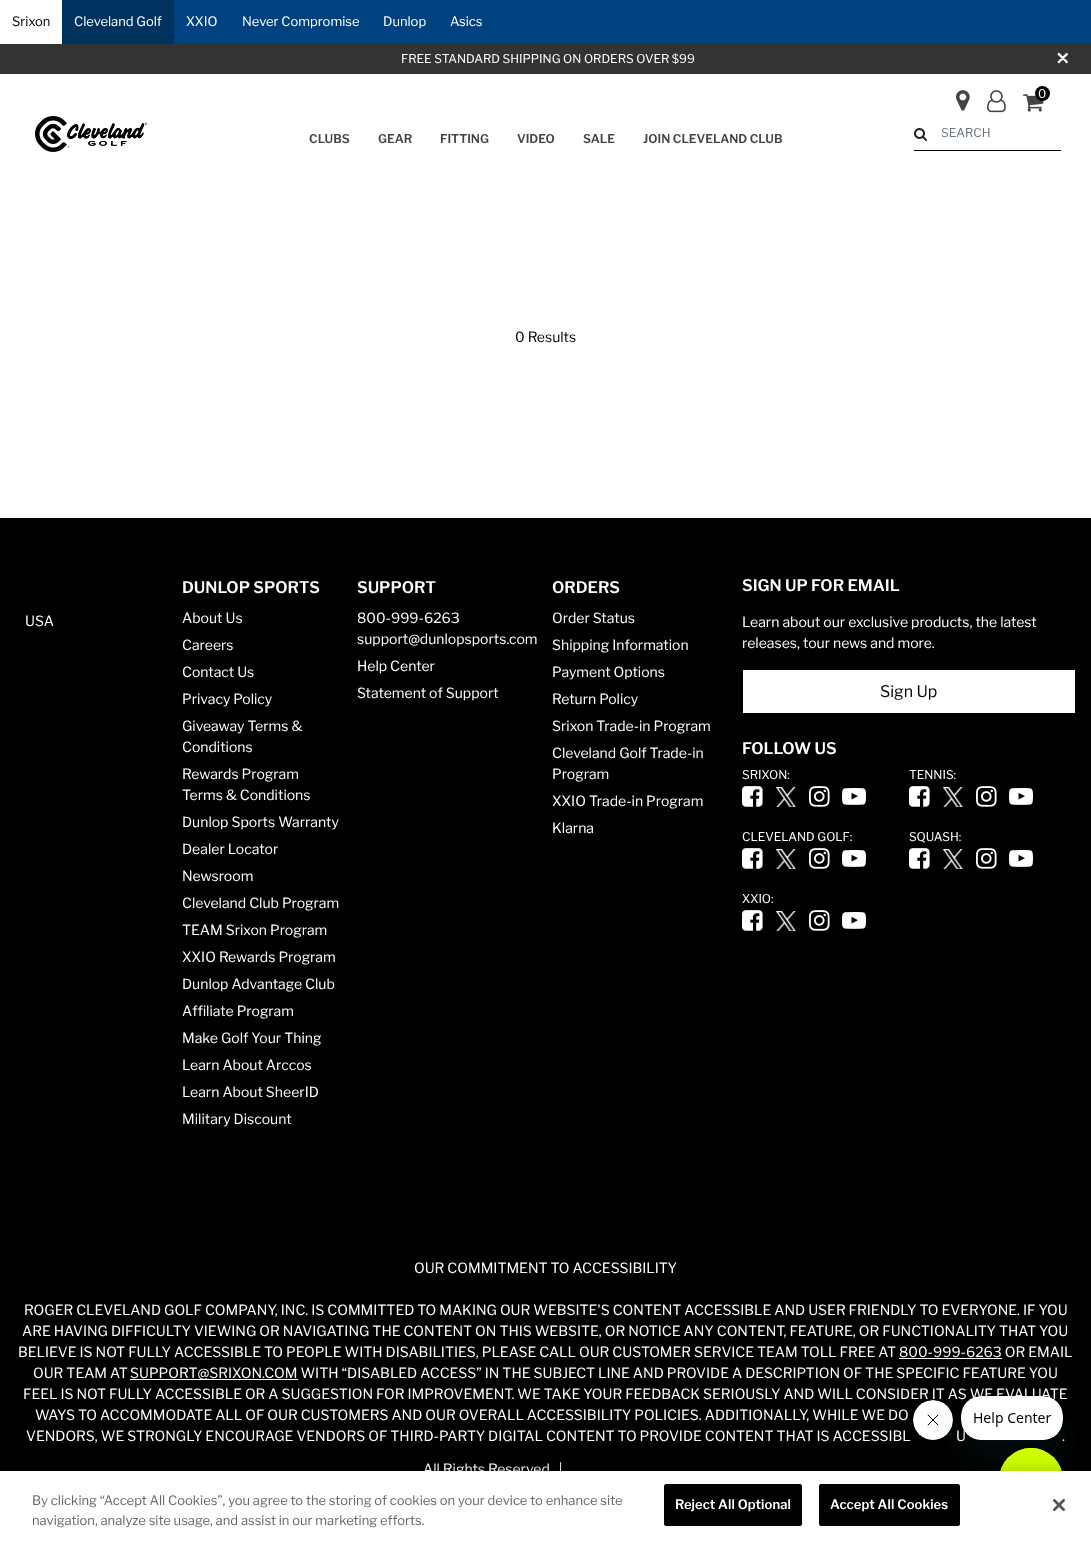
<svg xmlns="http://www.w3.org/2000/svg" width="1091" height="1542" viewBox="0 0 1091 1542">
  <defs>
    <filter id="blur1" x="-50%" y="-200%" width="200%" height="500%"><feGaussianBlur stdDeviation="15"/></filter>
    <filter id="blur2" x="-50%" y="-200%" width="200%" height="500%"><feGaussianBlur stdDeviation="9"/></filter>
  </defs>
  <rect width="100%" height="100%" fill="#ffffff"/>
  <rect x="174" y="0" width="917" height="44" fill="#00427f"/>
  <text x="12" y="26" font-family="Libre Franklin" font-size="13" fill="#000000">Srixon</text>
  <rect x="62" y="0" width="112" height="44" fill="#00325f"/>
  <text x="74" y="26" font-family="Libre Franklin" font-size="13" fill="#ffffff">Cleveland Golf</text>
  <text x="186" y="26" font-family="Libre Franklin" font-size="13" fill="#ffffff">XXIO</text>
  <text x="242" y="26" font-family="Libre Franklin" font-size="13" fill="#ffffff">Never Compromise</text>
  <text x="383" y="26" font-family="Libre Franklin" font-size="13" fill="#ffffff">Dunlop</text>
  <text x="450" y="26" font-family="Libre Franklin" font-size="13" fill="#ffffff">Asics</text>
  <rect x="0" y="44" width="1091" height="30" fill="#333333"/>
  <text x="401" y="63" font-family="Libre Franklin" font-size="12" fill="#ffffff">FREE STANDARD SHIPPING ON ORDERS OVER $99</text>
  <text x="1056" y="67" font-family="Libre Franklin" font-size="24" font-weight="600" fill="#ffffff">×</text>
  <image x="35" y="116" width="112" height="36" href="img1.png"/>
  <text x="309" y="143" font-family="Libre Franklin" font-size="12" font-weight="600" fill="#444444">CLUBS</text>
  <text x="378" y="143" font-family="Libre Franklin" font-size="12" font-weight="600" fill="#444444">GEAR</text>
  <text x="440" y="143" font-family="Libre Franklin" font-size="12" font-weight="600" fill="#444444">FITTING</text>
  <text x="517" y="143" font-family="Libre Franklin" font-size="12" font-weight="600" fill="#444444">VIDEO</text>
  <text x="583" y="143" font-family="Libre Franklin" font-size="12" font-weight="600" fill="#444444">SALE</text>
  <text x="643" y="143" font-family="Libre Franklin" font-size="12" font-weight="600" fill="#444444">JOIN CLEVELAND CLUB</text>
  <image x="956" y="90" width="14" height="21" href="img2.png"/>
  <image x="987" y="90" width="19" height="23" href="img3.png"/>
  <image x="1023" y="94" width="21" height="18" href="img4.png"/>
  <circle cx="1042.5" cy="93.5" r="7.5" fill="#000000"/>
  <text x="1038" y="98" font-family="Libre Franklin" font-size="12" fill="#ffffff">0</text>
  <image x="914" y="128" width="13" height="13" href="img5.png"/>
  <rect x="914" y="150" width="147" height="1" fill="#000000"/>
  <text x="941" y="137" font-family="Libre Franklin" font-size="12" fill="#6c757d">SEARCH</text>
  <text x="515" y="342" font-family="Libre Franklin" font-size="14" fill="#000000">0 Results</text>
  <rect x="0" y="518" width="1091" height="953" fill="#000000"/>
  <text x="25" y="626" font-family="Libre Franklin" font-size="14" fill="#ffffff">USA</text>
  <text x="182" y="593" font-family="Libre Franklin" font-size="16" font-weight="600" fill="#ffffff">DUNLOP SPORTS</text>
  <text x="182" y="623" font-family="Libre Franklin" font-size="14" fill="#ffffff">About Us</text>
  <text x="182" y="650" font-family="Libre Franklin" font-size="14" fill="#ffffff">Careers</text>
  <text x="182" y="677" font-family="Libre Franklin" font-size="14" fill="#ffffff">Contact Us</text>
  <text x="182" y="704" font-family="Libre Franklin" font-size="14" fill="#ffffff">Privacy Policy</text>
  <text x="182" y="731" font-family="Libre Franklin" font-size="14" fill="#ffffff">Giveaway Terms &amp;</text>
  <text x="182" y="752" font-family="Libre Franklin" font-size="14" fill="#ffffff">Conditions</text>
  <text x="182" y="779" font-family="Libre Franklin" font-size="14" fill="#ffffff">Rewards Program</text>
  <text x="182" y="800" font-family="Libre Franklin" font-size="14" fill="#ffffff">Terms &amp; Conditions</text>
  <text x="182" y="827" font-family="Libre Franklin" font-size="14" fill="#ffffff">Dunlop Sports Warranty</text>
  <text x="182" y="854" font-family="Libre Franklin" font-size="14" fill="#ffffff">Dealer Locator</text>
  <text x="182" y="881" font-family="Libre Franklin" font-size="14" fill="#ffffff">Newsroom</text>
  <text x="182" y="908" font-family="Libre Franklin" font-size="14" fill="#ffffff">Cleveland Club Program</text>
  <text x="182" y="935" font-family="Libre Franklin" font-size="14" fill="#ffffff">TEAM Srixon Program</text>
  <text x="182" y="962" font-family="Libre Franklin" font-size="14" fill="#ffffff">XXIO Rewards Program</text>
  <text x="182" y="989" font-family="Libre Franklin" font-size="14" fill="#ffffff">Dunlop Advantage Club</text>
  <text x="182" y="1016" font-family="Libre Franklin" font-size="14" fill="#ffffff">Affiliate Program</text>
  <text x="182" y="1043" font-family="Libre Franklin" font-size="14" fill="#ffffff">Make Golf Your Thing</text>
  <text x="182" y="1070" font-family="Libre Franklin" font-size="14" fill="#ffffff">Learn About Arccos</text>
  <text x="182" y="1097" font-family="Libre Franklin" font-size="14" fill="#ffffff">Learn About SheerID</text>
  <text x="182" y="1124" font-family="Libre Franklin" font-size="14" fill="#ffffff">Military Discount</text>
  <text x="357" y="593" font-family="Libre Franklin" font-size="16" font-weight="600" fill="#ffffff">SUPPORT</text>
  <text x="357" y="623" font-family="Libre Franklin" font-size="14" fill="#ffffff">800-999-6263</text>
  <text x="357" y="644" font-family="Libre Franklin" font-size="14" fill="#ffffff">support@dunlopsports.com</text>
  <text x="357" y="671" font-family="Libre Franklin" font-size="14" fill="#ffffff">Help Center</text>
  <text x="357" y="698" font-family="Libre Franklin" font-size="14" fill="#ffffff">Statement of Support</text>
  <text x="552" y="593" font-family="Libre Franklin" font-size="16" font-weight="600" fill="#ffffff">ORDERS</text>
  <text x="552" y="623" font-family="Libre Franklin" font-size="14" fill="#ffffff">Order Status</text>
  <text x="552" y="650" font-family="Libre Franklin" font-size="14" fill="#ffffff">Shipping Information</text>
  <text x="552" y="677" font-family="Libre Franklin" font-size="14" fill="#ffffff">Payment Options</text>
  <text x="552" y="704" font-family="Libre Franklin" font-size="14" fill="#ffffff">Return Policy</text>
  <text x="552" y="731" font-family="Libre Franklin" font-size="14" fill="#ffffff">Srixon Trade-in Program</text>
  <text x="552" y="758" font-family="Libre Franklin" font-size="14" fill="#ffffff">Cleveland Golf Trade-in</text>
  <text x="552" y="779" font-family="Libre Franklin" font-size="14" fill="#ffffff">Program</text>
  <text x="552" y="806" font-family="Libre Franklin" font-size="14" fill="#ffffff">XXIO Trade-in Program</text>
  <text x="552" y="833" font-family="Libre Franklin" font-size="14" fill="#ffffff">Klarna</text>
  <text x="742" y="591" font-family="Libre Franklin" font-size="16" font-weight="600" fill="#ffffff">SIGN UP FOR EMAIL</text>
  <text x="742" y="627" font-family="Libre Franklin" font-size="14" fill="#ffffff">Learn about our exclusive products, the latest</text>
  <text x="742" y="648" font-family="Libre Franklin" font-size="14" fill="#ffffff">releases, tour news and more.</text>
  <rect x="743" y="670" width="332" height="43" fill="#ffffff"/>
  <text x="880" y="697" font-family="Libre Franklin" font-size="16" fill="#000000">Sign Up</text>
  <text x="742" y="754" font-family="Libre Franklin" font-size="16" font-weight="600" fill="#ffffff">FOLLOW US</text>
  <text x="742" y="779" font-family="Libre Franklin" font-size="12" fill="#ffffff">SRIXON:</text>
  <image x="742" y="786" width="21" height="21" href="img6.png"/>
  <image x="776" y="787" width="20" height="20" href="img7.png"/>
  <image x="809" y="786" width="21" height="21" href="img8.png"/>
  <image x="842" y="788" width="24" height="17" href="img9.png"/>
  <text x="742" y="841" font-family="Libre Franklin" font-size="12" fill="#ffffff">CLEVELAND GOLF:</text>
  <image x="742" y="848" width="21" height="21" href="img6.png"/>
  <image x="776" y="849" width="20" height="20" href="img7.png"/>
  <image x="809" y="848" width="21" height="21" href="img8.png"/>
  <image x="842" y="850" width="24" height="17" href="img9.png"/>
  <text x="742" y="903" font-family="Libre Franklin" font-size="12" fill="#ffffff">XXIO:</text>
  <image x="742" y="910" width="21" height="21" href="img6.png"/>
  <image x="776" y="911" width="20" height="20" href="img7.png"/>
  <image x="809" y="910" width="21" height="21" href="img8.png"/>
  <image x="842" y="912" width="24" height="17" href="img9.png"/>
  <text x="909" y="779" font-family="Libre Franklin" font-size="12" fill="#ffffff">TENNIS:</text>
  <image x="909" y="786" width="21" height="21" href="img6.png"/>
  <image x="943" y="787" width="20" height="20" href="img7.png"/>
  <image x="976" y="786" width="21" height="21" href="img8.png"/>
  <image x="1009" y="788" width="24" height="17" href="img9.png"/>
  <text x="909" y="841" font-family="Libre Franklin" font-size="12" fill="#ffffff">SQUASH:</text>
  <image x="909" y="848" width="21" height="21" href="img6.png"/>
  <image x="943" y="849" width="20" height="20" href="img7.png"/>
  <image x="976" y="848" width="21" height="21" href="img8.png"/>
  <image x="1009" y="850" width="24" height="17" href="img9.png"/>
  <text x="414" y="1273" font-family="Libre Franklin" font-size="14" fill="#ffffff">OUR COMMITMENT TO ACCESSIBILITY</text>
  <text x="24" y="1315" font-family="Libre Franklin" font-size="14" fill="#ffffff">ROGER CLEVELAND GOLF COMPANY, INC. IS COMMITTED TO MAKING OUR WEBSITE'S CONTENT ACCESSIBLE AND USER FRIENDLY TO EVERYONE. IF YOU</text>
  <text x="22" y="1336" font-family="Libre Franklin" font-size="14" fill="#ffffff">ARE HAVING DIFFICULTY VIEWING OR NAVIGATING THE CONTENT ON THIS WEBSITE, OR NOTICE ANY CONTENT, FEATURE, OR FUNCTIONALITY THAT YOU</text>
  <text x="18" y="1357" font-family="Libre Franklin" font-size="14" fill="#ffffff">BELIEVE IS NOT FULLY ACCESSIBLE TO PEOPLE WITH DISABILITIES, PLEASE CALL OUR CUSTOMER SERVICE TEAM TOLL FREE AT 800-999-6263 OR EMAIL</text>
  <rect x="899" y="1358" width="103" height="1" fill="#ffffff"/>
  <text x="33" y="1378" font-family="Libre Franklin" font-size="14" fill="#ffffff">OUR TEAM AT</text>
  <rect x="130" y="1379" width="168" height="1" fill="#ffffff"/>
  <text x="130" y="1378" font-family="Libre Franklin" font-size="14" fill="#ffffff">SUPPORT@SRIXON.COM WITH “DISABLED ACCESS” IN THE SUBJECT LINE AND PROVIDE A DESCRIPTION OF THE SPECIFIC FEATURE YOU</text>
  <text x="23" y="1399" font-family="Libre Franklin" font-size="14" fill="#ffffff">FEEL IS NOT FULLY ACCESSIBLE OR A SUGGESTION FOR IMPROVEMENT. WE TAKE YOUR FEEDBACK SERIOUSLY AND WILL CONSIDER IT AS WE EVALUATE</text>
  <text x="35" y="1420" font-family="Libre Franklin" font-size="14" fill="#ffffff">WAYS TO ACCOMMODATE ALL OF OUR CUSTOMERS AND OUR OVERALL ACCESSIBILITY POLICIES. ADDITIONALLY, WHILE WE DO</text>
  <text x="26" y="1441" font-family="Libre Franklin" font-size="14" fill="#ffffff">VENDORS, WE STRONGLY ENCOURAGE VENDORS OF THIRD-PARTY DIGITAL CONTENT TO PROVIDE CONTENT THAT IS ACCESSIBL</text>
  <text x="956" y="1441" font-family="Libre Franklin" font-size="14" fill="#ffffff">U</text>
  <text x="1062" y="1441" font-family="Libre Franklin" font-size="14" fill="#ffffff">.</text>
  <text x="423" y="1474" font-family="Libre Franklin" font-size="14" fill="#ffffff" xml:space="preserve">All Rights Reserved.  |</text>
  <image x="913" y="1400" width="40" height="40" href="img12.png"/>
  <rect x="961" y="1416" width="102" height="44" rx="20" fill="#17494d" fill-opacity="0.15" filter="url(#blur1)"/>
  <image x="961" y="1396" width="102" height="44" href="img11.png"/>
  <rect x="999" y="1468" width="64" height="64" rx="32" fill="#17494d" fill-opacity="0.15" filter="url(#blur1)"/>
  <image x="1000" y="1448" width="62" height="23" href="img13.png"/>
  <rect x="0" y="1471" width="1091" height="71" fill="#000000" fill-opacity="0.2" filter="url(#blur2)"/>
  <rect x="0" y="1471" width="1091" height="71" fill="#ffffff"/>
  <text x="32" y="1505" font-family="Libre Franklin" font-size="13" fill="#696969">By clicking “Accept All Cookies”, you agree to the storing of cookies on your device to enhance site</text>
  <text x="32" y="1525" font-family="Libre Franklin" font-size="13" fill="#696969">navigation, analyze site usage, and assist in our marketing efforts.</text>
  <rect x="664.5" y="1484.5" width="137" height="41" rx="1.5" fill="#000000" stroke="#000000"/>
  <text x="675" y="1509" font-family="Libre Franklin" font-size="13" font-weight="600" letter-spacing="0.1" fill="#ffffff">Reject All Optional</text>
  <rect x="819.5" y="1484.5" width="140" height="41" rx="1.5" fill="#000000" stroke="#000000"/>
  <text x="830" y="1509" font-family="Libre Franklin" font-size="13" font-weight="600" letter-spacing="0.1" fill="#ffffff">Accept All Cookies</text>
  <image x="1053" y="1499" width="12" height="12" href="img10.png"/>
</svg>
